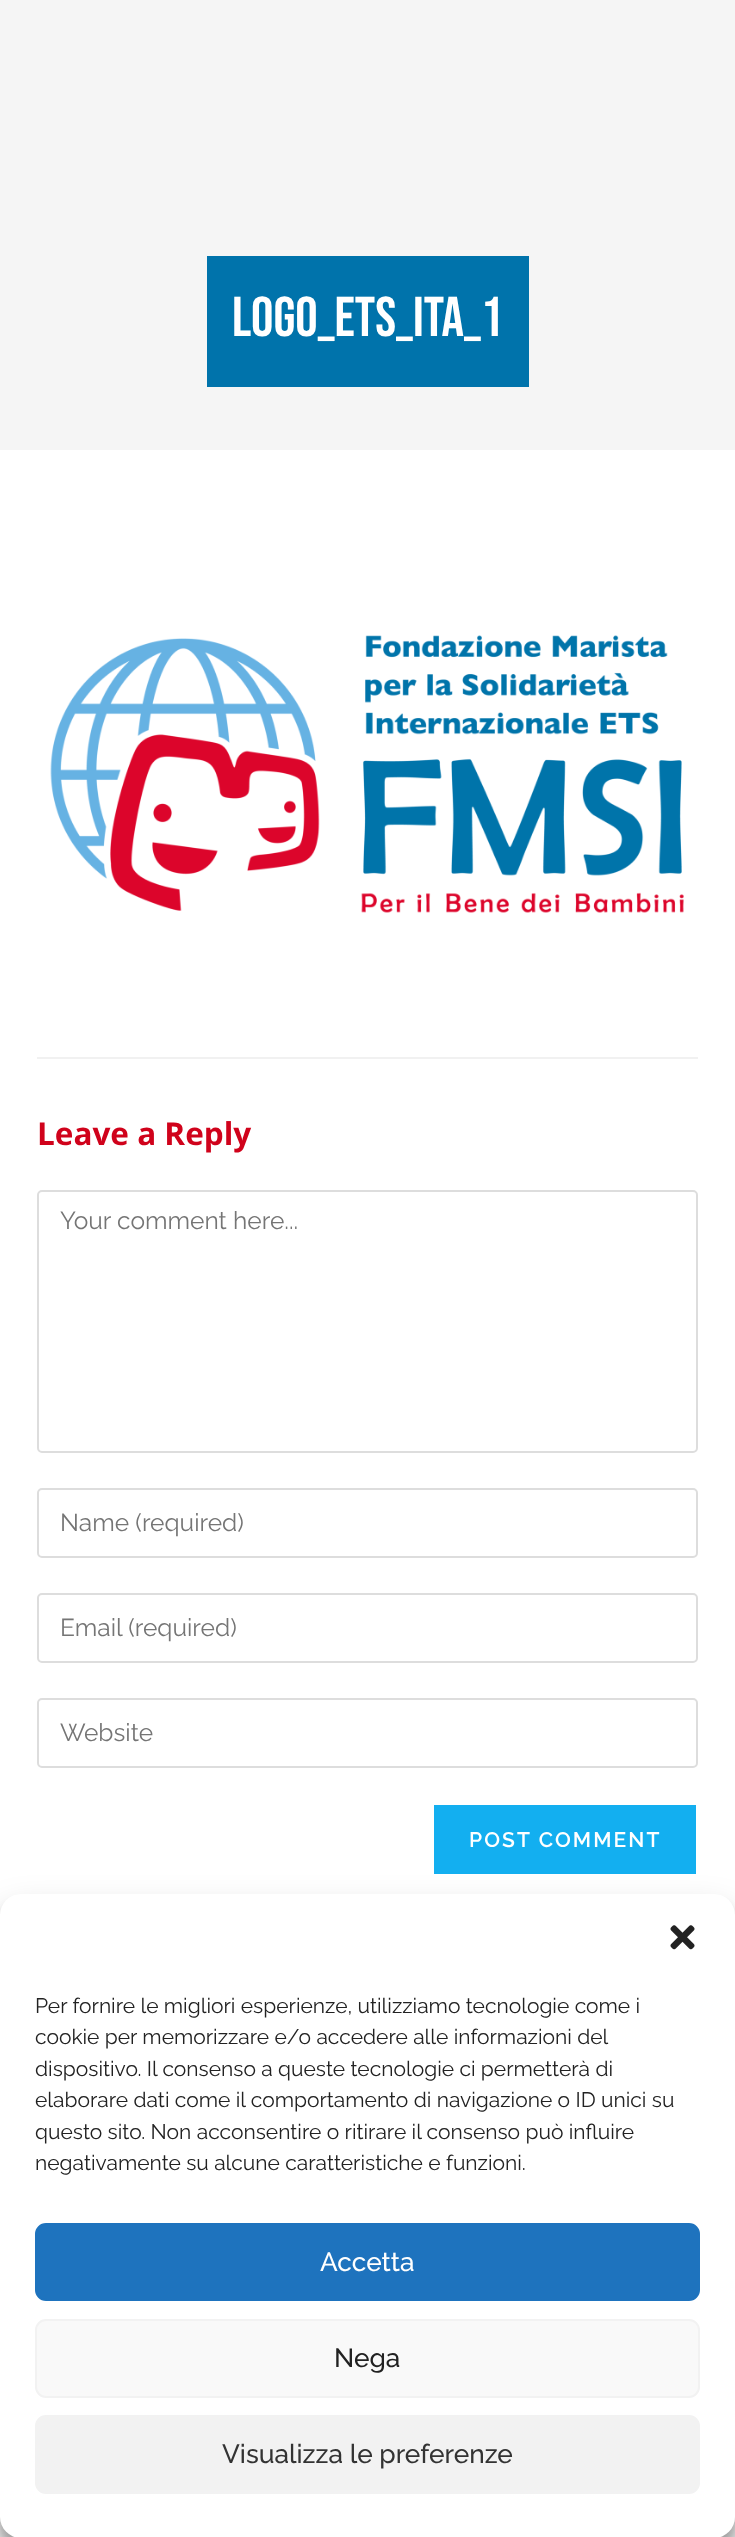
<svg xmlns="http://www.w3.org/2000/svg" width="735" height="2537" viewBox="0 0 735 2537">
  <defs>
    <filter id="blur1" x="-50%" y="-200%" width="200%" height="500%"><feGaussianBlur stdDeviation="5"/></filter>
    <filter id="blur2" x="-50%" y="-200%" width="200%" height="500%"><feGaussianBlur stdDeviation="17.5"/></filter>
  </defs>
  <rect width="100%" height="100%" fill="#ffffff"/>
  <rect x="0" y="0" width="735" height="450" fill="#f5f5f5"/>
  <rect x="207" y="256" width="322" height="131" fill="#0073ab"/>
  <text x="232" y="336" font-family="Bebas Neue" font-size="56" fill="#ffffff">LOGO_ETS_ITA_1</text>
  <image x="50" y="635" width="634" height="278" href="img1.png"/>
  <rect x="37" y="1057" width="661" height="2" fill="#f1f1f1"/>
  <text x="37" y="1145" font-family="Open Sans" font-size="31.5" font-weight="bold" fill="#d0021b">Leave a Reply</text>
  <rect x="38" y="1191" width="659" height="261" rx="4" fill="none" stroke="#dddddd" stroke-width="2"/>
  <text x="60" y="1229" font-family="Raleway" font-size="24.5" fill="#757575">Your comment here...</text>
  <rect x="38" y="1489" width="659" height="68" rx="4" fill="none" stroke="#dddddd" stroke-width="2"/>
  <text x="60" y="1531" font-family="Raleway" font-size="24.5" fill="#757575">Name (required)</text>
  <rect x="38" y="1594" width="659" height="68" rx="4" fill="none" stroke="#dddddd" stroke-width="2"/>
  <text x="60" y="1636" font-family="Raleway" font-size="24.5" fill="#757575">Email (required)</text>
  <rect x="38" y="1699" width="659" height="68" rx="4" fill="none" stroke="#dddddd" stroke-width="2"/>
  <text x="60" y="1741" font-family="Raleway" font-size="24.5" fill="#757575">Website</text>
  <rect x="434" y="1805" width="262" height="69" fill="#13aff0"/>
  <text x="469" y="1847" font-family="Raleway" font-size="21" font-weight="600" letter-spacing="2.1" fill="#ffffff">POST COMMENT</text>
  <rect x="0" y="2517" width="735" height="20" fill="#efefef"/>
  <rect x="0" y="1904" width="735" height="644" rx="21" fill="#000000" fill-opacity="0.23" filter="url(#blur1)"/>
  <rect x="0" y="1911" width="735" height="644" rx="21" fill="#000000" fill-opacity="0.19" filter="url(#blur2)"/>
  <rect x="0" y="1894" width="735" height="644" rx="21" fill="#ffffff"/>
  <image x="670" y="1925" width="25" height="25" href="img2.png"/>
  <text x="35" y="2013" font-family="Raleway" font-size="21" fill="#222222">Per fornire le migliori esperienze, utilizziamo tecnologie come i</text>
  <text x="35" y="2044" font-family="Raleway" font-size="21" fill="#222222">cookie per memorizzare e/o accedere alle informazioni del</text>
  <text x="35" y="2076" font-family="Raleway" font-size="21" fill="#222222">dispositivo. Il consenso a queste tecnologie ci permetterà di</text>
  <text x="35" y="2107" font-family="Raleway" font-size="21" fill="#222222">elaborare dati come il comportamento di navigazione o ID unici su</text>
  <text x="35" y="2139" font-family="Raleway" font-size="21" fill="#222222">questo sito. Non acconsentire o ritirare il consenso può influire</text>
  <text x="35" y="2170" font-family="Raleway" font-size="21" fill="#222222">negativamente su alcune caratteristiche e funzioni.</text>
  <rect x="36" y="2224" width="663" height="76" rx="10" fill="#1e73be" stroke="#1e73be" stroke-width="2"/>
  <text x="320" y="2271" font-family="Raleway" font-size="26.25" font-weight="500" fill="#ffffff">Accetta</text>
  <rect x="36" y="2320" width="663" height="77" rx="10" fill="#f9f9f9" stroke="#f2f2f2" stroke-width="2"/>
  <text x="334" y="2367" font-family="Raleway" font-size="26.25" font-weight="500" fill="#222222">Nega</text>
  <rect x="36" y="2416" width="663" height="77" rx="10" fill="#f2f2f2" stroke="#f2f2f2" stroke-width="2"/>
  <text x="222" y="2463" font-family="Raleway" font-size="26.25" font-weight="500" fill="#333333">Visualizza le preferenze</text>
</svg>
